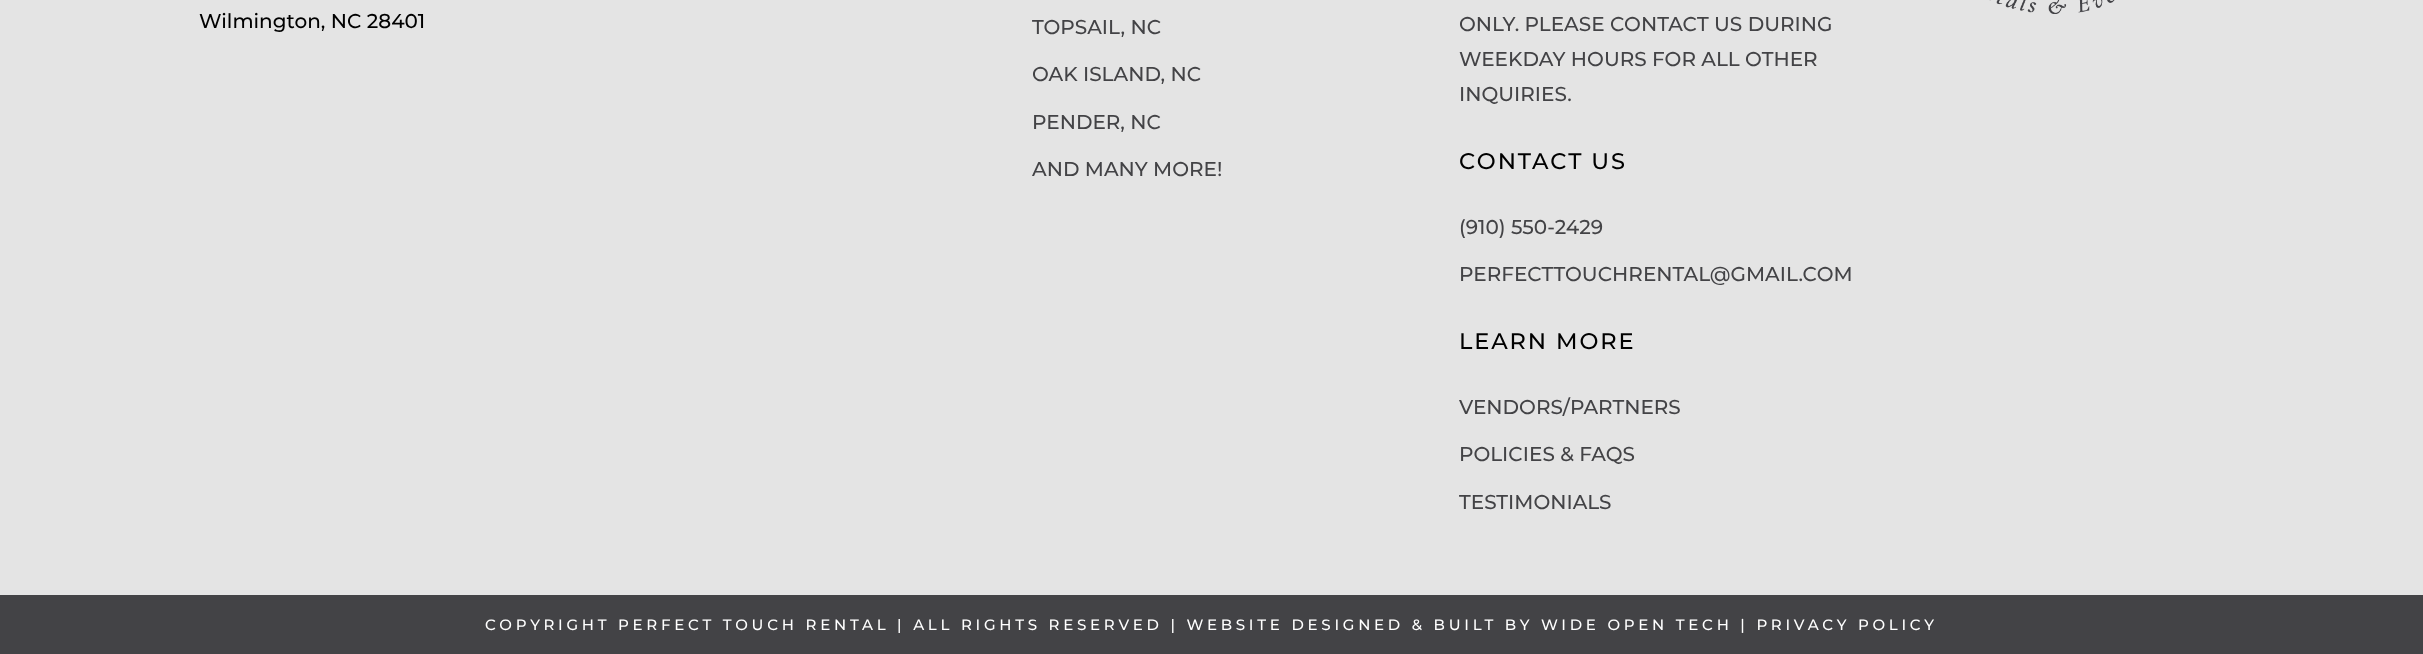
<svg xmlns="http://www.w3.org/2000/svg" width="2423" height="654" viewBox="0 0 2423 654">
  <rect width="100%" height="100%" fill="#e4e4e4"/>
  <image x="1989" y="0" width="126" height="14" href="img1.png"/>
  <text x="199" y="28" font-family="Montserrat" font-size="20" font-weight="500" fill="#000000">Wilmington, NC 28401</text>
  <text x="1032" y="34" font-family="Montserrat" font-size="20" font-weight="500" fill="#434346">TOPSAIL, NC</text>
  <text x="1032" y="81" font-family="Montserrat" font-size="20" font-weight="500" fill="#434346">OAK ISLAND, NC</text>
  <text x="1032" y="129" font-family="Montserrat" font-size="20" font-weight="500" fill="#434346">PENDER, NC</text>
  <text x="1032" y="176" font-family="Montserrat" font-size="20" font-weight="500" fill="#434346">AND MANY MORE!</text>
  <text x="1459" y="31" font-family="Montserrat" font-size="20" font-weight="500" fill="#434346">ONLY. PLEASE CONTACT US DURING</text>
  <text x="1459" y="66" font-family="Montserrat" font-size="20" font-weight="500" fill="#434346">WEEKDAY HOURS FOR ALL OTHER</text>
  <text x="1459" y="101" font-family="Montserrat" font-size="20" font-weight="500" fill="#434346">INQUIRIES.</text>
  <text x="1459" y="169" font-family="Montserrat" font-size="22.5" font-weight="500" letter-spacing="1.9" fill="#000000">CONTACT US</text>
  <text x="1459" y="234" font-family="Montserrat" font-size="20" font-weight="500" fill="#434346">(910) 550-2429</text>
  <text x="1459" y="281" font-family="Montserrat" font-size="20" font-weight="500" fill="#434346">PERFECTTOUCHRENTAL@GMAIL.COM</text>
  <text x="1459" y="349" font-family="Montserrat" font-size="22.5" font-weight="500" letter-spacing="1.9" fill="#000000">LEARN MORE</text>
  <text x="1459" y="414" font-family="Montserrat" font-size="20" font-weight="500" fill="#434346">VENDORS/PARTNERS</text>
  <text x="1459" y="461" font-family="Montserrat" font-size="20" font-weight="500" fill="#434346">POLICIES &amp; FAQS</text>
  <text x="1459" y="509" font-family="Montserrat" font-size="20" font-weight="500" fill="#434346">TESTIMONIALS</text>
  <rect x="0" y="595" width="2423" height="59" fill="#434346"/>
  <text x="485" y="630" font-family="Montserrat" font-size="15" font-weight="500" letter-spacing="3.75" fill="#ffffff">COPYRIGHT PERFECT TOUCH RENTAL | ALL RIGHTS RESERVED | WEBSITE DESIGNED &amp; BUILT BY WIDE OPEN TECH | PRIVACY POLICY</text>
</svg>
